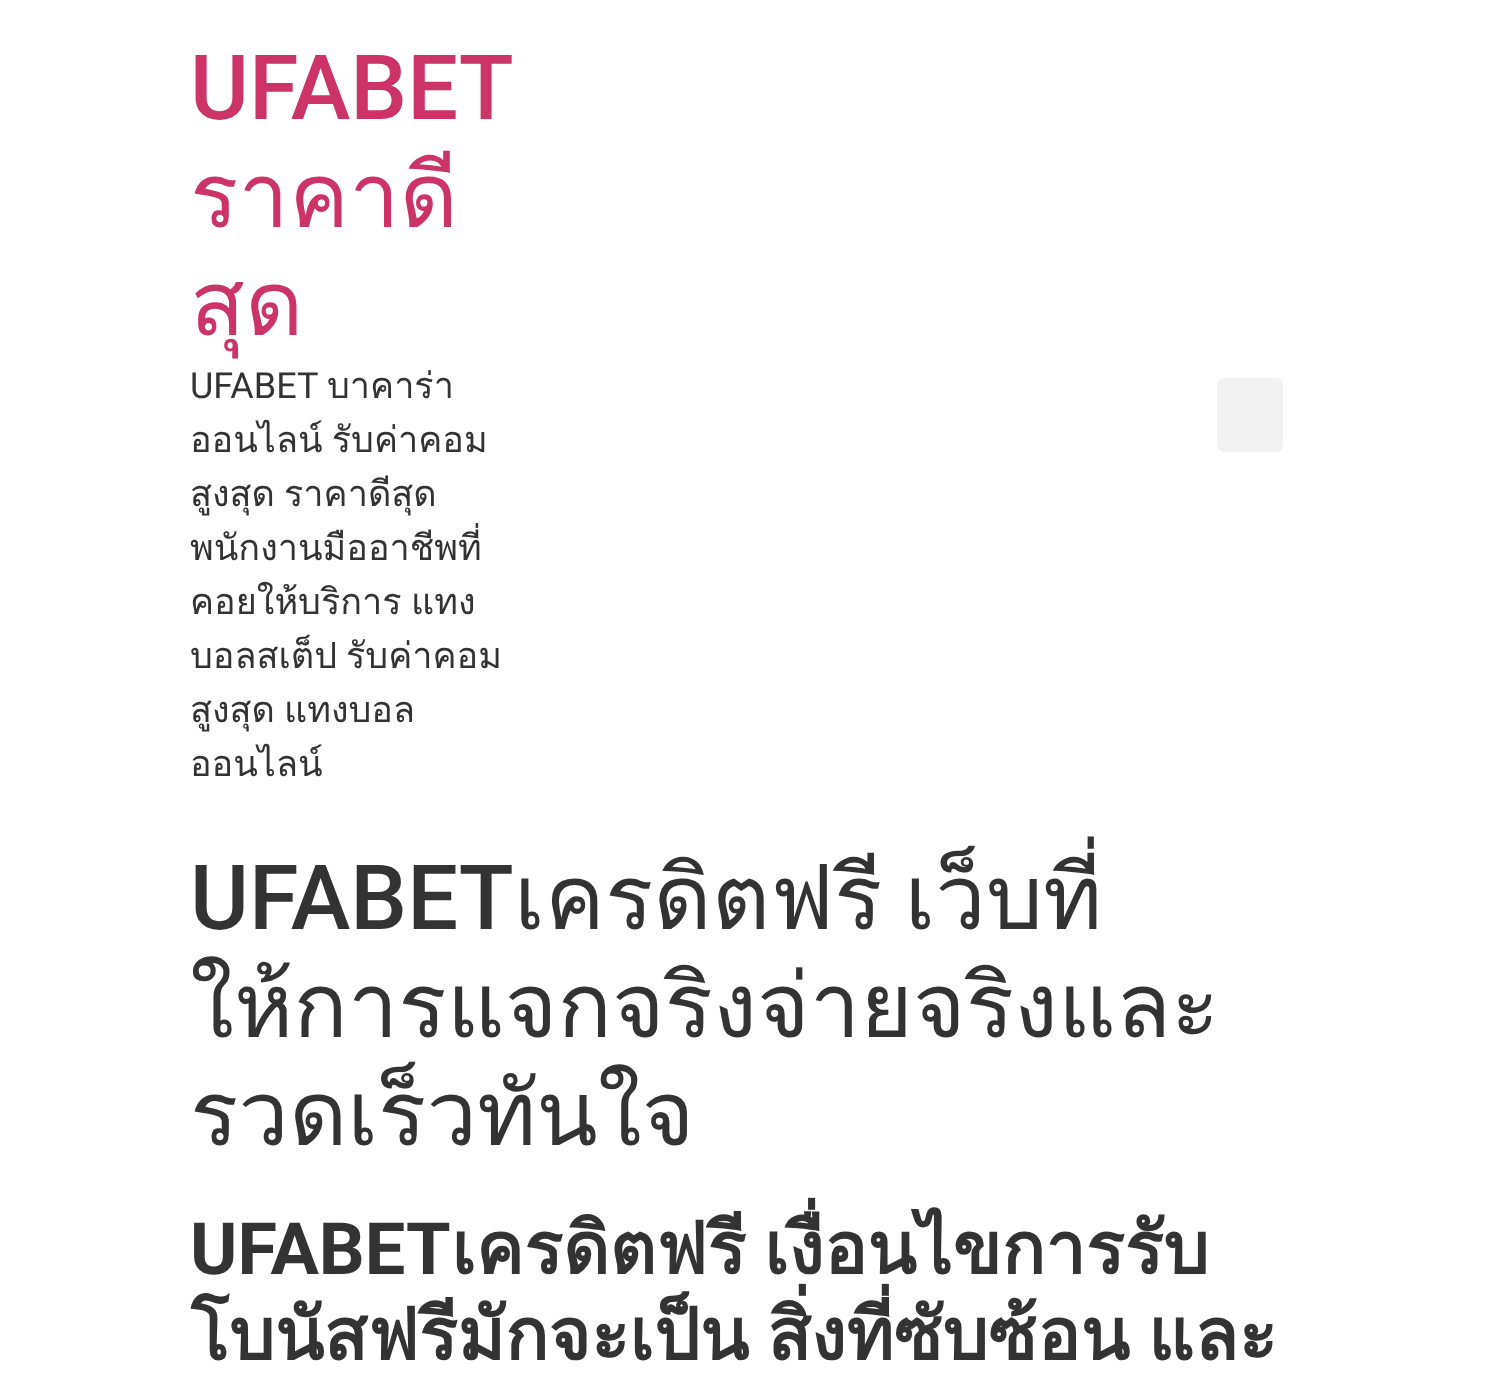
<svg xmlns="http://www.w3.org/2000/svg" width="1504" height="1395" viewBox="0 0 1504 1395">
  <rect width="100%" height="100%" fill="#ffffff"/>
  <text x="190" y="119" font-family="Roboto" font-size="90" font-weight="500" fill="#cc3366">UFABET</text>
  <text x="190" y="227" font-family="Loma" font-size="90" fill="#cc3366">ราคาดี</text>
  <text x="190" y="335" font-family="Loma" font-size="90" fill="#cc3366">สุด</text>
  <text x="190" y="398" font-family="Roboto" font-size="36" fill="#333333">UFABET</text>
  <text x="327" y="398" font-family="Loma" font-size="36" fill="#333333">บาคาร่า</text>
  <text x="190" y="452" word-spacing="-3" font-family="Loma" font-size="36" fill="#333333">ออนไลน์ รับค่าคอม</text>
  <text x="190" y="506" word-spacing="-3" font-family="Loma" font-size="36" fill="#333333">สูงสุด ราคาดีสุด</text>
  <text x="190" y="560" font-family="Loma" font-size="36" fill="#333333">พนักงานมืออาชีพที่</text>
  <text x="190" y="614" font-family="Loma" font-size="36" fill="#333333">คอยให้บริการ</text>
  <text x="411" y="614" font-family="Loma" font-size="36" fill="#333333">แทง</text>
  <text x="190" y="668" font-family="Loma" font-size="36" fill="#333333">บอลสเต็ป</text>
  <text x="346" y="668" font-family="Loma" font-size="36" fill="#333333">รับค่าคอม</text>
  <text x="190" y="722" font-family="Loma" font-size="36" fill="#333333">สูงสุด</text>
  <text x="284" y="722" font-family="Loma" font-size="36" fill="#333333">แทงบอล</text>
  <text x="190" y="776" font-family="Loma" font-size="36" fill="#333333">ออนไลน์</text>
  <rect x="1217" y="378" width="66" height="74" rx="7" fill="#f2f2f2"/>
  <text x="190" y="929" font-family="Roboto" font-size="90" font-weight="500" fill="#333333">UFABET</text>
  <text x="514" y="929" word-spacing="-8" font-family="Loma" font-size="90" fill="#333333">เครดิตฟรี เว็บที่</text>
  <text x="190" y="1037" font-family="Loma" font-size="90" fill="#333333">ให้การแจกจริงจ่ายจริงและ</text>
  <text x="190" y="1145" font-family="Loma" font-size="90" fill="#333333">รวดเร็วทันใจ</text>
  <text x="190" y="1274" font-family="Roboto" font-size="72" font-weight="bold" fill="#333333">UFABET</text>
  <text x="451" y="1274" word-spacing="-6" font-family="Loma" font-size="72" font-weight="bold" fill="#333333">เครดิตฟรี เงื่อนไขการรับ</text>
  <text x="190" y="1360" word-spacing="-6" font-family="Loma" font-size="72" font-weight="bold" fill="#333333">โบนัสฟรีมักจะเป็น สิ่งที่ซับซ้อน และ</text>
</svg>
